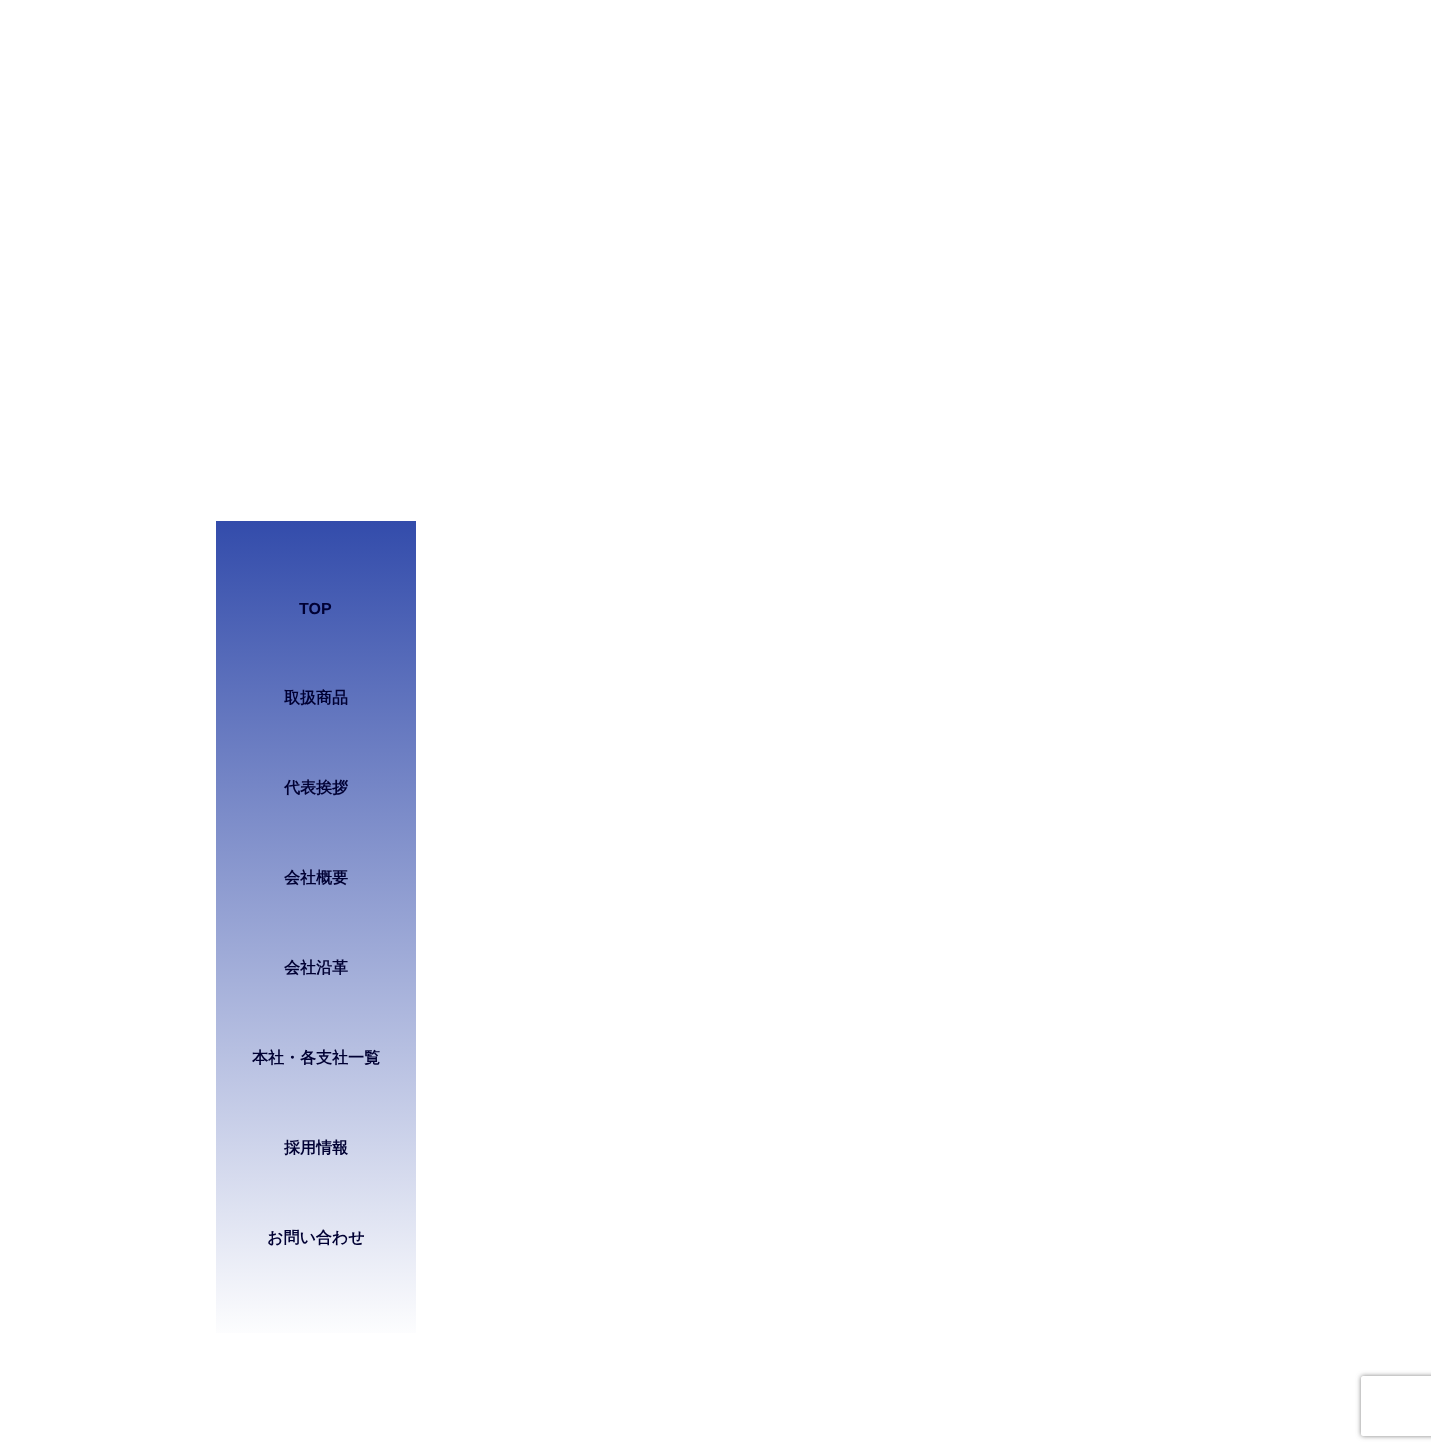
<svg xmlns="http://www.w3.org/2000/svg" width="1431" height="1450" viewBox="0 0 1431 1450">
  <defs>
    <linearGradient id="g1" gradientUnits="userSpaceOnUse" x1="316" y1="521" x2="316" y2="1343"><stop offset="0" stop-color="#334cab"/><stop offset="1" stop-color="#ffffff"/></linearGradient>
    <clipPath id="clip1"><path d="M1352 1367H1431V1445H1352ZM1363 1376H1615C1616 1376 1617 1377 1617 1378V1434C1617 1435 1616 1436 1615 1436H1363C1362 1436 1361 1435 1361 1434V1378C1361 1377 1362 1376 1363 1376Z" clip-rule="evenodd"/></clipPath>
    <filter id="blur1" x="-50%" y="-200%" width="200%" height="500%"><feGaussianBlur stdDeviation="2.5"/></filter>
  </defs>
  <rect width="100%" height="100%" fill="#ffffff"/>
  <rect x="216" y="521" width="200" height="812" fill="url(#g1)"/>
  <text x="299" y="614" font-family="Liberation Sans" font-size="16" font-weight="bold" fill="#000033">TOP</text>
  <text x="284" y="703" font-family="WenQuanYi Zen Hei" font-size="16" font-weight="bold" fill="#000033">取扱商品</text>
  <text x="284" y="793" font-family="WenQuanYi Zen Hei" font-size="16" font-weight="bold" fill="#000033">代表挨拶</text>
  <text x="284" y="883" font-family="WenQuanYi Zen Hei" font-size="16" font-weight="bold" fill="#000033">会社概要</text>
  <text x="284" y="973" font-family="WenQuanYi Zen Hei" font-size="16" font-weight="bold" fill="#000033">会社沿革</text>
  <text x="252" y="1063" font-family="WenQuanYi Zen Hei" font-size="16" font-weight="bold" fill="#000033">本社・各支社一覧</text>
  <text x="284" y="1153" font-family="WenQuanYi Zen Hei" font-size="16" font-weight="bold" fill="#000033">採用情報</text>
  <text x="267" y="1243" font-family="WenQuanYi Zen Hei" font-size="16" font-weight="bold" fill="#000033">お問い合わせ</text>
  <g clip-path="url(#clip1)">
    <rect x="1361" y="1376" width="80" height="60" rx="2" fill="#808080" filter="url(#blur1)"/>
  </g>
</svg>
